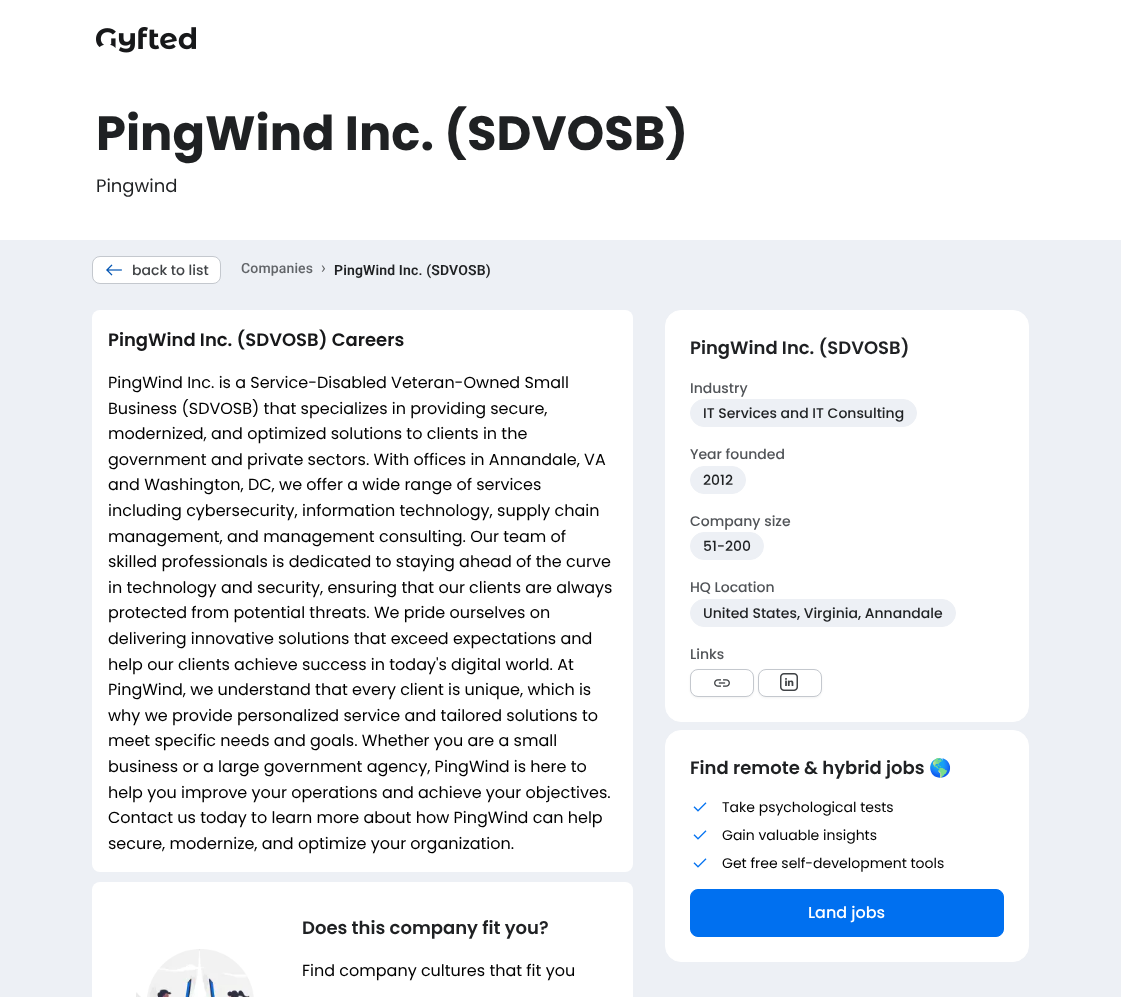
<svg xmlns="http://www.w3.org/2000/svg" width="1121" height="997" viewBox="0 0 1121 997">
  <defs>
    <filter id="blur1" x="-50%" y="-200%" width="200%" height="500%"><feGaussianBlur stdDeviation="1"/></filter>
  </defs>
  <rect width="100%" height="100%" fill="#ffffff"/>
  <image x="96" y="27" width="100" height="26" href="img1.png"/>
  <text x="96" y="150" font-family="Poppins" font-size="48" font-weight="bold" fill="#1f2123">PingWind Inc. (SDVOSB)</text>
  <text x="96" y="192" font-family="Poppins" font-size="18" fill="#1f2123">Pingwind</text>
  <rect x="0" y="240" width="1121" height="757" fill="#edf0f5"/>
  <rect x="92.5" y="256.5" width="128" height="27" rx="7.5" fill="#ffffff" stroke="#c4c8ce"/>
  <image x="106" y="264" width="16" height="12" href="img2.png"/>
  <text x="132" y="275" font-family="Poppins" font-size="14" font-weight="500" fill="#404346">back to list</text>
  <text x="241" y="273" font-family="Roboto" font-size="14" font-weight="500" letter-spacing="0.15" fill="#626569">Companies</text>
  <text x="321" y="273" font-family="Roboto" font-size="16" letter-spacing="0.15" fill="#5f6062">›</text>
  <text x="334" y="275" font-family="Roboto" font-size="14" font-weight="600" letter-spacing="0.15" fill="#1f2123">PingWind Inc. (SDVOSB)</text>
  <rect x="92" y="310" width="541" height="562" rx="8" fill="#ffffff"/>
  <text x="108" y="346" font-family="Poppins" font-size="18" font-weight="600" fill="#17181a">PingWind Inc. (SDVOSB) Careers</text>
  <text x="108" y="388" font-family="Poppins" font-size="16" fill="#000000">PingWind Inc. is a Service-Disabled Veteran-Owned Small</text>
  <text x="108" y="414" font-family="Poppins" font-size="16" fill="#000000">Business (SDVOSB) that specializes in providing secure,</text>
  <text x="108" y="439" font-family="Poppins" font-size="16" fill="#000000">modernized, and optimized solutions to clients in the</text>
  <text x="108" y="465" font-family="Poppins" font-size="16" fill="#000000">government and private sectors. With offices in Annandale, VA</text>
  <text x="108" y="490" font-family="Poppins" font-size="16" fill="#000000">and Washington, DC, we offer a wide range of services</text>
  <text x="108" y="516" font-family="Poppins" font-size="16" fill="#000000">including cybersecurity, information technology, supply chain</text>
  <text x="108" y="542" font-family="Poppins" font-size="16" fill="#000000">management, and management consulting. Our team of</text>
  <text x="108" y="567" font-family="Poppins" font-size="16" fill="#000000">skilled professionals is dedicated to staying ahead of the curve</text>
  <text x="108" y="593" font-family="Poppins" font-size="16" fill="#000000">in technology and security, ensuring that our clients are always</text>
  <text x="108" y="618" font-family="Poppins" font-size="16" fill="#000000">protected from potential threats. We pride ourselves on</text>
  <text x="108" y="644" font-family="Poppins" font-size="16" fill="#000000">delivering innovative solutions that exceed expectations and</text>
  <text x="108" y="670" font-family="Poppins" font-size="16" fill="#000000">help our clients achieve success in today's digital world. At</text>
  <text x="108" y="695" font-family="Poppins" font-size="16" fill="#000000">PingWind, we understand that every client is unique, which is</text>
  <text x="108" y="721" font-family="Poppins" font-size="16" fill="#000000">why we provide personalized service and tailored solutions to</text>
  <text x="108" y="746" font-family="Poppins" font-size="16" fill="#000000">meet specific needs and goals. Whether you are a small</text>
  <text x="108" y="772" font-family="Poppins" font-size="16" fill="#000000">business or a large government agency, PingWind is here to</text>
  <text x="108" y="798" font-family="Poppins" font-size="16" fill="#000000">help you improve your operations and achieve your objectives.</text>
  <text x="108" y="823" font-family="Poppins" font-size="16" fill="#000000">Contact us today to learn more about how PingWind can help</text>
  <text x="108" y="849" font-family="Poppins" font-size="16" fill="#000000">secure, modernize, and optimize your organization.</text>
  <rect x="92" y="882" width="541" height="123" rx="8" fill="#ffffff"/>
  <image x="136" y="949" width="118" height="48" href="img3.png"/>
  <text x="302" y="934" font-family="Poppins" font-size="18" font-weight="600" fill="#1f2123">Does this company fit you?</text>
  <text x="302" y="976" font-family="Poppins" font-size="16" fill="#000000">Find company cultures that fit you</text>
  <rect x="665.5" y="310.5" width="363" height="411" rx="15.5" fill="#ffffff" stroke="#ffffff"/>
  <text x="690" y="354" font-family="Poppins" font-size="18" font-weight="600" fill="#1f2123">PingWind Inc. (SDVOSB)</text>
  <text x="690" y="393" font-family="Poppins" font-size="14" font-weight="500" fill="#515458">Industry</text>
  <rect x="690.5" y="399.5" width="226" height="27" rx="13.5" fill="#edf0f5" stroke="#edf0f5"/>
  <text x="703" y="418" font-family="Poppins" font-size="14" font-weight="500" fill="#1f2123">IT Services and IT Consulting</text>
  <text x="690" y="459" font-family="Poppins" font-size="14" font-weight="500" fill="#515458">Year founded</text>
  <rect x="690.5" y="466.5" width="55" height="27" rx="13.5" fill="#edf0f5" stroke="#edf0f5"/>
  <text x="703" y="485" font-family="Poppins" font-size="14" font-weight="500" fill="#1f2123">2012</text>
  <text x="690" y="526" font-family="Poppins" font-size="14" font-weight="500" fill="#515458">Company size</text>
  <rect x="690.5" y="532.5" width="73" height="27" rx="13.5" fill="#edf0f5" stroke="#edf0f5"/>
  <text x="703" y="551" font-family="Poppins" font-size="14" font-weight="500" fill="#1f2123">51-200</text>
  <text x="690" y="592" font-family="Poppins" font-size="14" font-weight="500" fill="#515458">HQ Location</text>
  <rect x="690.5" y="599.5" width="265" height="27" rx="13.5" fill="#edf0f5" stroke="#edf0f5"/>
  <text x="703" y="618" font-family="Poppins" font-size="14" font-weight="500" fill="#1f2123">United States, Virginia, Annandale</text>
  <text x="690" y="659" font-family="Poppins" font-size="14" font-weight="500" fill="#515458">Links</text>
  <rect x="690" y="670" width="64" height="28" rx="8" fill="#17181a" fill-opacity="0.05" filter="url(#blur1)"/>
  <rect x="690.5" y="669.5" width="63" height="27" rx="7.5" fill="#ffffff" stroke="#c4c8ce"/>
  <image x="714" y="679" width="16" height="8" href="img4.png"/>
  <rect x="758" y="670" width="64" height="28" rx="8" fill="#17181a" fill-opacity="0.05" filter="url(#blur1)"/>
  <rect x="758.5" y="669.5" width="63" height="27" rx="7.5" fill="#ffffff" stroke="#c4c8ce"/>
  <image x="780" y="673" width="18" height="18" href="img5.png"/>
  <rect x="665.5" y="730.5" width="363" height="231" rx="15.5" fill="#ffffff" stroke="#ffffff"/>
  <text x="690" y="774" font-family="Poppins" font-size="18" font-weight="600" fill="#1f2123">Find remote &amp; hybrid jobs</text>
  <text x="929" y="774" font-family="Noto Color Emoji" font-size="18" font-weight="bold" fill="#1f2123">🌎</text>
  <image x="693" y="802" width="14" height="10" href="img6.png"/>
  <text x="722" y="812" font-family="Poppins" font-size="14" fill="#000000">Take psychological tests</text>
  <image x="693" y="830" width="14" height="10" href="img6.png"/>
  <text x="722" y="840" font-family="Poppins" font-size="14" fill="#000000">Gain valuable insights</text>
  <image x="693" y="858" width="14" height="10" href="img6.png"/>
  <text x="722" y="868" font-family="Poppins" font-size="14" fill="#000000">Get free self-development tools</text>
  <rect x="690.5" y="889.5" width="313" height="47" rx="7.5" fill="#0070f0" stroke="#0070f0"/>
  <text x="808" y="918" font-family="Poppins" font-size="16" font-weight="500" fill="#ffffff">Land jobs</text>
</svg>
